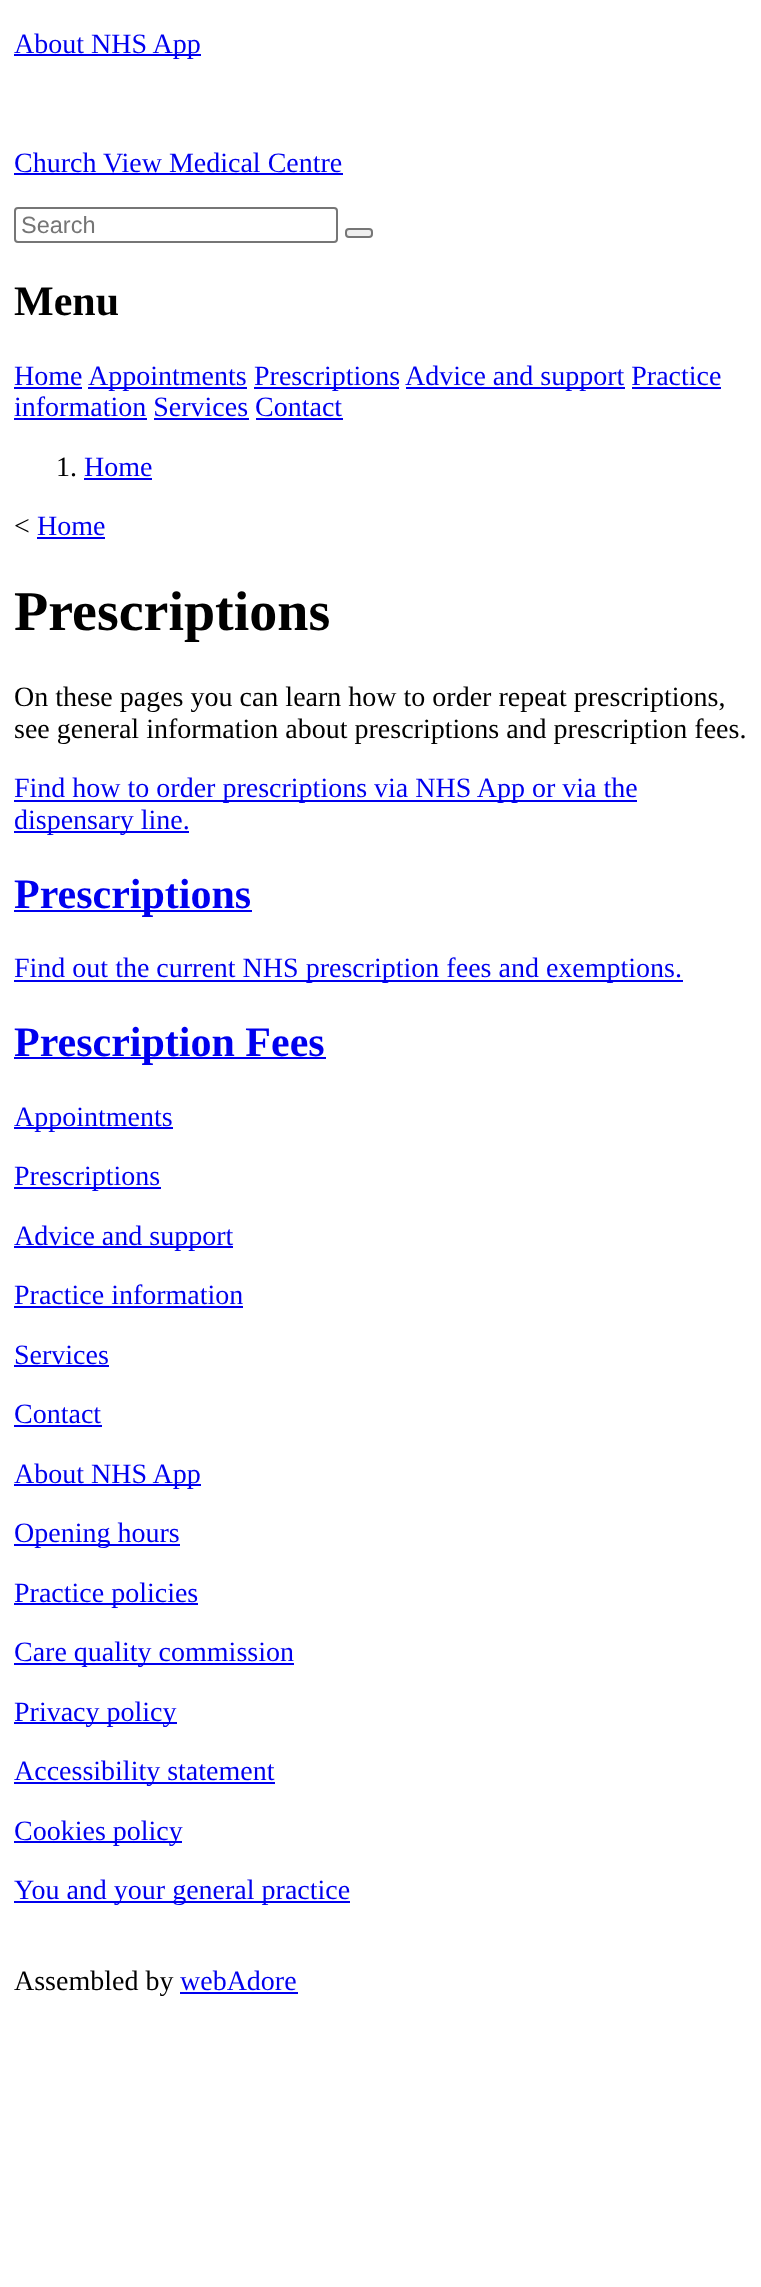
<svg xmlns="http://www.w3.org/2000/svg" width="761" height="2287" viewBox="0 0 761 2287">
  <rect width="100%" height="100%" fill="#ffffff"/>
  <rect x="14" y="54" width="187" height="2" fill="#0000ee"/>
  <text x="14" y="53" font-family="Liberation Serif" font-size="28" fill="#0000ee">About NHS App</text>
  <text x="14" y="172" font-family="Liberation Serif" font-size="28" fill="#0000ee">Church View Medical Centre</text>
  <rect x="14" y="173" width="329" height="2" fill="#0000ee"/>
  <rect x="15" y="208" width="322" height="34" rx="3" fill="none" stroke="#767676" stroke-width="2"/>
  <text x="21" y="233" font-family="Liberation Sans" font-size="23.5" fill="#757575">Search</text>
  <rect x="346" y="229" width="26" height="8" rx="3" fill="#efefef" stroke="#767676" stroke-width="2"/>
  <text x="14" y="315" font-family="Liberation Serif" font-size="42" font-weight="bold" fill="#000000">Menu</text>
  <text x="14" y="385" font-family="Liberation Serif" font-size="28" fill="#0000ee">Home</text>
  <rect x="14" y="387" width="68" height="2" fill="#0000ee"/>
  <rect x="88" y="387" width="159" height="2" fill="#0000ee"/>
  <text x="88" y="385" font-family="Liberation Serif" font-size="28" fill="#0000ee">Appointments</text>
  <rect x="254" y="387" width="145" height="2" fill="#0000ee"/>
  <text x="254" y="385" font-family="Liberation Serif" font-size="28" fill="#0000ee">Prescriptions</text>
  <rect x="406" y="387" width="219" height="2" fill="#0000ee"/>
  <text x="405" y="385" font-family="Liberation Serif" font-size="28" fill="#0000ee">Advice and support Practice</text>
  <text x="14" y="416" font-family="Liberation Serif" font-size="28" fill="#0000ee">information Services Contact</text>
  <rect x="632" y="387" width="89" height="2" fill="#0000ee"/>
  <rect x="14" y="418" width="133" height="2" fill="#0000ee"/>
  <rect x="154" y="418" width="95" height="2" fill="#0000ee"/>
  <rect x="256" y="418" width="87" height="2" fill="#0000ee"/>
  <text x="56" y="476" font-family="Liberation Serif" font-size="28" fill="#000000">1.</text>
  <text x="84" y="476" font-family="Liberation Serif" font-size="28" fill="#0000ee">Home</text>
  <rect x="84" y="478" width="68" height="2" fill="#0000ee"/>
  <text x="14" y="535" font-family="Liberation Serif" font-size="28" fill="#000000">&lt;</text>
  <text x="37" y="535" font-family="Liberation Serif" font-size="28" fill="#0000ee">Home</text>
  <rect x="37" y="537" width="68" height="2" fill="#0000ee"/>
  <text x="14" y="630" font-family="Liberation Serif" font-size="56" font-weight="bold" fill="#000000">Prescriptions</text>
  <text x="14" y="706" font-family="Liberation Serif" font-size="28" fill="#000000">On these pages you can learn how to order repeat prescriptions,</text>
  <text x="14" y="738" font-family="Liberation Serif" font-size="28" fill="#000000">see general information about prescriptions and prescription fees.</text>
  <rect x="14" y="800" width="623" height="2" fill="#0000ee"/>
  <text x="14" y="797" font-family="Liberation Serif" font-size="28" fill="#0000ee">Find how to order prescriptions via NHS App or via the</text>
  <rect x="14" y="831" width="175" height="2" fill="#0000ee"/>
  <text x="14" y="829" font-family="Liberation Serif" font-size="28" fill="#0000ee">dispensary line.</text>
  <rect x="14" y="910" width="238" height="2" fill="#0000ee"/>
  <text x="14" y="908" font-family="Liberation Serif" font-size="42" font-weight="bold" fill="#0000ee">Prescriptions</text>
  <rect x="14" y="980" width="669" height="2" fill="#0000ee"/>
  <text x="14" y="977" font-family="Liberation Serif" font-size="28" fill="#0000ee">Find out the current NHS prescription fees and exemptions.</text>
  <rect x="14" y="1057" width="312" height="2" fill="#0000ee"/>
  <text x="14" y="1056" font-family="Liberation Serif" font-size="42" font-weight="bold" fill="#0000ee">Prescription Fees</text>
  <rect x="14" y="1127" width="159" height="2" fill="#0000ee"/>
  <text x="14" y="1126" font-family="Liberation Serif" font-size="28" fill="#0000ee">Appointments</text>
  <rect x="14" y="1187" width="147" height="2" fill="#0000ee"/>
  <text x="14" y="1185" font-family="Liberation Serif" font-size="28" fill="#0000ee">Prescriptions</text>
  <rect x="14" y="1246" width="219" height="2" fill="#0000ee"/>
  <text x="14" y="1245" font-family="Liberation Serif" font-size="28" fill="#0000ee">Advice and support</text>
  <text x="14" y="1304" font-family="Liberation Serif" font-size="28" fill="#0000ee">Practice information</text>
  <rect x="14" y="1306" width="229" height="2" fill="#0000ee"/>
  <text x="14" y="1364" font-family="Liberation Serif" font-size="28" fill="#0000ee">Services</text>
  <rect x="14" y="1365" width="95" height="2" fill="#0000ee"/>
  <text x="14" y="1423" font-family="Liberation Serif" font-size="28" fill="#0000ee">Contact</text>
  <rect x="14" y="1425" width="88" height="2" fill="#0000ee"/>
  <rect x="14" y="1484" width="187" height="2" fill="#0000ee"/>
  <text x="14" y="1483" font-family="Liberation Serif" font-size="28" fill="#0000ee">About NHS App</text>
  <rect x="14" y="1544" width="166" height="2" fill="#0000ee"/>
  <text x="14" y="1542" font-family="Liberation Serif" font-size="28" fill="#0000ee">Opening hours</text>
  <rect x="14" y="1603" width="184" height="2" fill="#0000ee"/>
  <text x="14" y="1602" font-family="Liberation Serif" font-size="28" fill="#0000ee">Practice policies</text>
  <rect x="14" y="1663" width="280" height="2" fill="#0000ee"/>
  <text x="14" y="1661" font-family="Liberation Serif" font-size="28" fill="#0000ee">Care quality commission</text>
  <rect x="14" y="1722" width="163" height="2" fill="#0000ee"/>
  <text x="14" y="1721" font-family="Liberation Serif" font-size="28" fill="#0000ee">Privacy policy</text>
  <rect x="14" y="1782" width="261" height="2" fill="#0000ee"/>
  <text x="14" y="1780" font-family="Liberation Serif" font-size="28" fill="#0000ee">Accessibility statement</text>
  <rect x="14" y="1841" width="168" height="2" fill="#0000ee"/>
  <text x="14" y="1840" font-family="Liberation Serif" font-size="28" fill="#0000ee">Cookies policy</text>
  <rect x="14" y="1901" width="336" height="2" fill="#0000ee"/>
  <text x="14" y="1899" font-family="Liberation Serif" font-size="28" fill="#0000ee">You and your general practice</text>
  <text x="14" y="1990" font-family="Liberation Serif" font-size="28" fill="#000000">Assembled by</text>
  <text x="180" y="1990" font-family="Liberation Serif" font-size="28" fill="#0000ee">webAdore</text>
  <rect x="180" y="1992" width="118" height="2" fill="#0000ee"/>
</svg>
